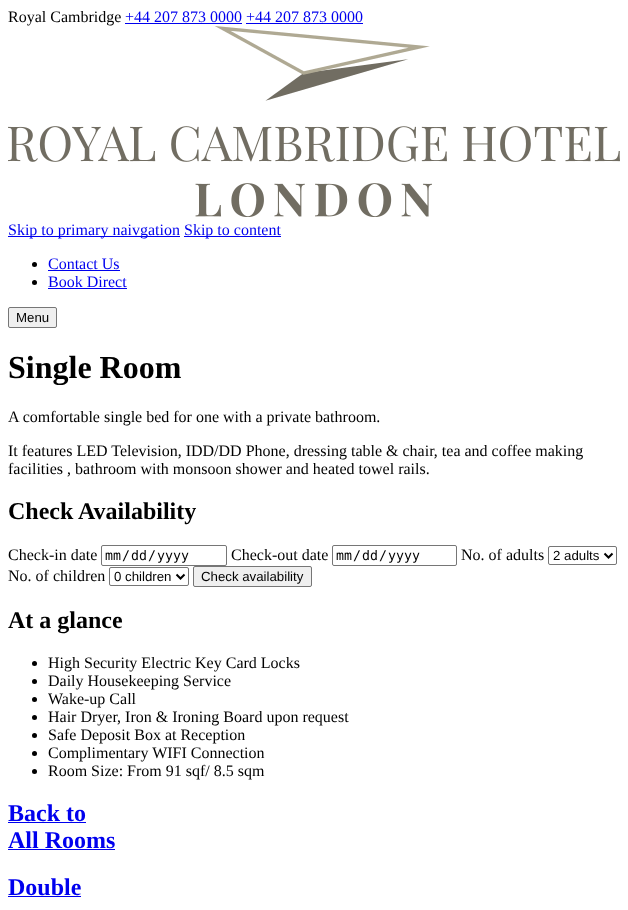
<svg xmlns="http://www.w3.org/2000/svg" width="628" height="910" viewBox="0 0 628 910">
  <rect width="100%" height="100%" fill="#ffffff"/>
  <text x="8" y="22" font-family="Liberation Serif" font-size="16" fill="#000000">Royal Cambridge</text>
  <text x="125" y="22" font-family="Liberation Serif" font-size="16" fill="#0000ee">+44 207 873 0000 +44 207 873 0000</text>
  <rect x="125" y="23" width="117" height="1" fill="#0000ee"/>
  <rect x="246" y="23" width="117" height="1" fill="#0000ee"/>
  <image x="8" y="26" width="612" height="191" href="img1.png"/>
  <rect x="8" y="236" width="172" height="1" fill="#0000ee"/>
  <text x="8" y="235" font-family="Liberation Serif" font-size="16" fill="#0000ee">Skip to primary naivgation</text>
  <rect x="184" y="236" width="97" height="1" fill="#0000ee"/>
  <text x="184" y="235" font-family="Liberation Serif" font-size="16" fill="#0000ee">Skip to content</text>
  <circle cx="34.5" cy="264.5" r="2.5" fill="#000000"/>
  <text x="48" y="269" font-family="Liberation Serif" font-size="16" fill="#0000ee">Contact Us</text>
  <rect x="48" y="270" width="72" height="1" fill="#0000ee"/>
  <circle cx="34.5" cy="282.5" r="2.5" fill="#000000"/>
  <text x="48" y="287" font-family="Liberation Serif" font-size="16" fill="#0000ee">Book Direct</text>
  <rect x="48" y="288" width="79" height="1" fill="#0000ee"/>
  <rect x="8.5" y="307.5" width="48" height="20" rx="1.5" fill="#efefef" stroke="#767676"/>
  <text x="16" y="322" font-family="Liberation Sans" font-size="13.25" fill="#000000">Menu</text>
  <text x="8" y="378" font-family="Liberation Serif" font-size="32" font-weight="bold" fill="#000000">Single Room</text>
  <text x="8" y="422" font-family="Liberation Serif" font-size="16" fill="#000000">A comfortable single bed for one with a private bathroom.</text>
  <text x="8" y="456" font-family="Liberation Serif" font-size="16" fill="#000000">It features LED Television, IDD/DD Phone, dressing table &amp; chair, tea and coffee making</text>
  <text x="8" y="474" font-family="Liberation Serif" font-size="16" fill="#000000">facilities , bathroom with monsoon shower and heated towel rails.</text>
  <text x="8" y="519" font-family="Liberation Serif" font-size="24" font-weight="bold" fill="#000000">Check Availability</text>
  <text x="8" y="560" font-family="Liberation Serif" font-size="16" fill="#000000">Check-in date</text>
  <rect x="101.5" y="545.5" width="125" height="20" rx="1.5" fill="none" stroke="#767676"/>
  <text x="105" y="560" font-family="DejaVu Sans Mono" font-size="13.25" fill="#000000">mm</text>
  <text x="122" y="560" font-family="DejaVu Sans Mono" font-size="13.25" fill="#000000">/</text>
  <text x="131" y="560" font-family="DejaVu Sans Mono" font-size="13.25" fill="#000000">dd</text>
  <text x="148" y="560" font-family="DejaVu Sans Mono" font-size="13.25" fill="#000000">/</text>
  <text x="157" y="560" font-family="DejaVu Sans Mono" font-size="13.25" fill="#000000">yyyy</text>
  <text x="231" y="560" font-family="Liberation Serif" font-size="16" fill="#000000">Check-out date</text>
  <rect x="332.5" y="545.5" width="124" height="20" rx="1.5" fill="none" stroke="#767676"/>
  <text x="336" y="560" font-family="DejaVu Sans Mono" font-size="13.25" fill="#000000">mm</text>
  <text x="353" y="560" font-family="DejaVu Sans Mono" font-size="13.25" fill="#000000">/</text>
  <text x="362" y="560" font-family="DejaVu Sans Mono" font-size="13.25" fill="#000000">dd</text>
  <text x="379" y="560" font-family="DejaVu Sans Mono" font-size="13.25" fill="#000000">/</text>
  <text x="388" y="560" font-family="DejaVu Sans Mono" font-size="13.25" fill="#000000">yyyy</text>
  <text x="461" y="560" font-family="Liberation Serif" font-size="16" fill="#000000">No. of adults</text>
  <rect x="548.5" y="546.5" width="68" height="18" rx="1.5" fill="none" stroke="#767676"/>
  <path d="M604.5 553.5L608.5 557.5L612.5 553.5" fill="none" stroke="#000000" stroke-width="2"/>
  <text x="553" y="560" font-family="Liberation Sans" font-size="13.25" fill="#000000">2 adults</text>
  <text x="8" y="581" font-family="Liberation Serif" font-size="16" fill="#000000">No. of children</text>
  <rect x="109.5" y="567.5" width="79" height="18" rx="1.5" fill="none" stroke="#767676"/>
  <path d="M176.5 574.5L180.5 578.5L184.5 574.5" fill="none" stroke="#000000" stroke-width="2"/>
  <text x="114" y="581" font-family="Liberation Sans" font-size="13.25" fill="#000000">0 children</text>
  <rect x="193.5" y="566.5" width="118" height="20" rx="1.5" fill="#efefef" stroke="#767676"/>
  <text x="201" y="581" font-family="Liberation Sans" font-size="13.25" fill="#000000">Check availability</text>
  <text x="8" y="628" font-family="Liberation Serif" font-size="24" font-weight="bold" fill="#000000">At a glance</text>
  <circle cx="34.5" cy="663.5" r="2.5" fill="#000000"/>
  <text x="48" y="668" font-family="Liberation Serif" font-size="16" fill="#000000">High Security Electric Key Card Locks</text>
  <circle cx="34.5" cy="681.5" r="2.5" fill="#000000"/>
  <text x="48" y="686" font-family="Liberation Serif" font-size="16" fill="#000000">Daily Housekeeping Service</text>
  <circle cx="34.5" cy="699.5" r="2.5" fill="#000000"/>
  <text x="48" y="704" font-family="Liberation Serif" font-size="16" fill="#000000">Wake-up Call</text>
  <circle cx="34.5" cy="717.5" r="2.5" fill="#000000"/>
  <text x="48" y="722" font-family="Liberation Serif" font-size="16" fill="#000000">Hair Dryer, Iron &amp; Ironing Board upon request</text>
  <circle cx="34.5" cy="735.5" r="2.5" fill="#000000"/>
  <text x="48" y="740" font-family="Liberation Serif" font-size="16" fill="#000000">Safe Deposit Box at Reception</text>
  <circle cx="34.5" cy="753.5" r="2.5" fill="#000000"/>
  <text x="48" y="758" font-family="Liberation Serif" font-size="16" fill="#000000">Complimentary WIFI Connection</text>
  <circle cx="34.5" cy="771.5" r="2.5" fill="#000000"/>
  <text x="48" y="776" font-family="Liberation Serif" font-size="16" fill="#000000">Room Size: From 91 sqf/ 8.5 sqm</text>
  <text x="8" y="821" font-family="Liberation Serif" font-size="24" font-weight="bold" fill="#0000ee">Back to</text>
  <rect x="8" y="822" width="78" height="1" fill="#0000ee"/>
  <text x="8" y="848" font-family="Liberation Serif" font-size="24" font-weight="bold" fill="#0000ee">All Rooms</text>
  <rect x="8" y="849" width="107" height="1" fill="#0000ee"/>
  <text x="8" y="895" font-family="Liberation Serif" font-size="24" font-weight="bold" fill="#0000ee">Double</text>
  <rect x="8" y="896" width="73" height="1" fill="#0000ee"/>
</svg>
